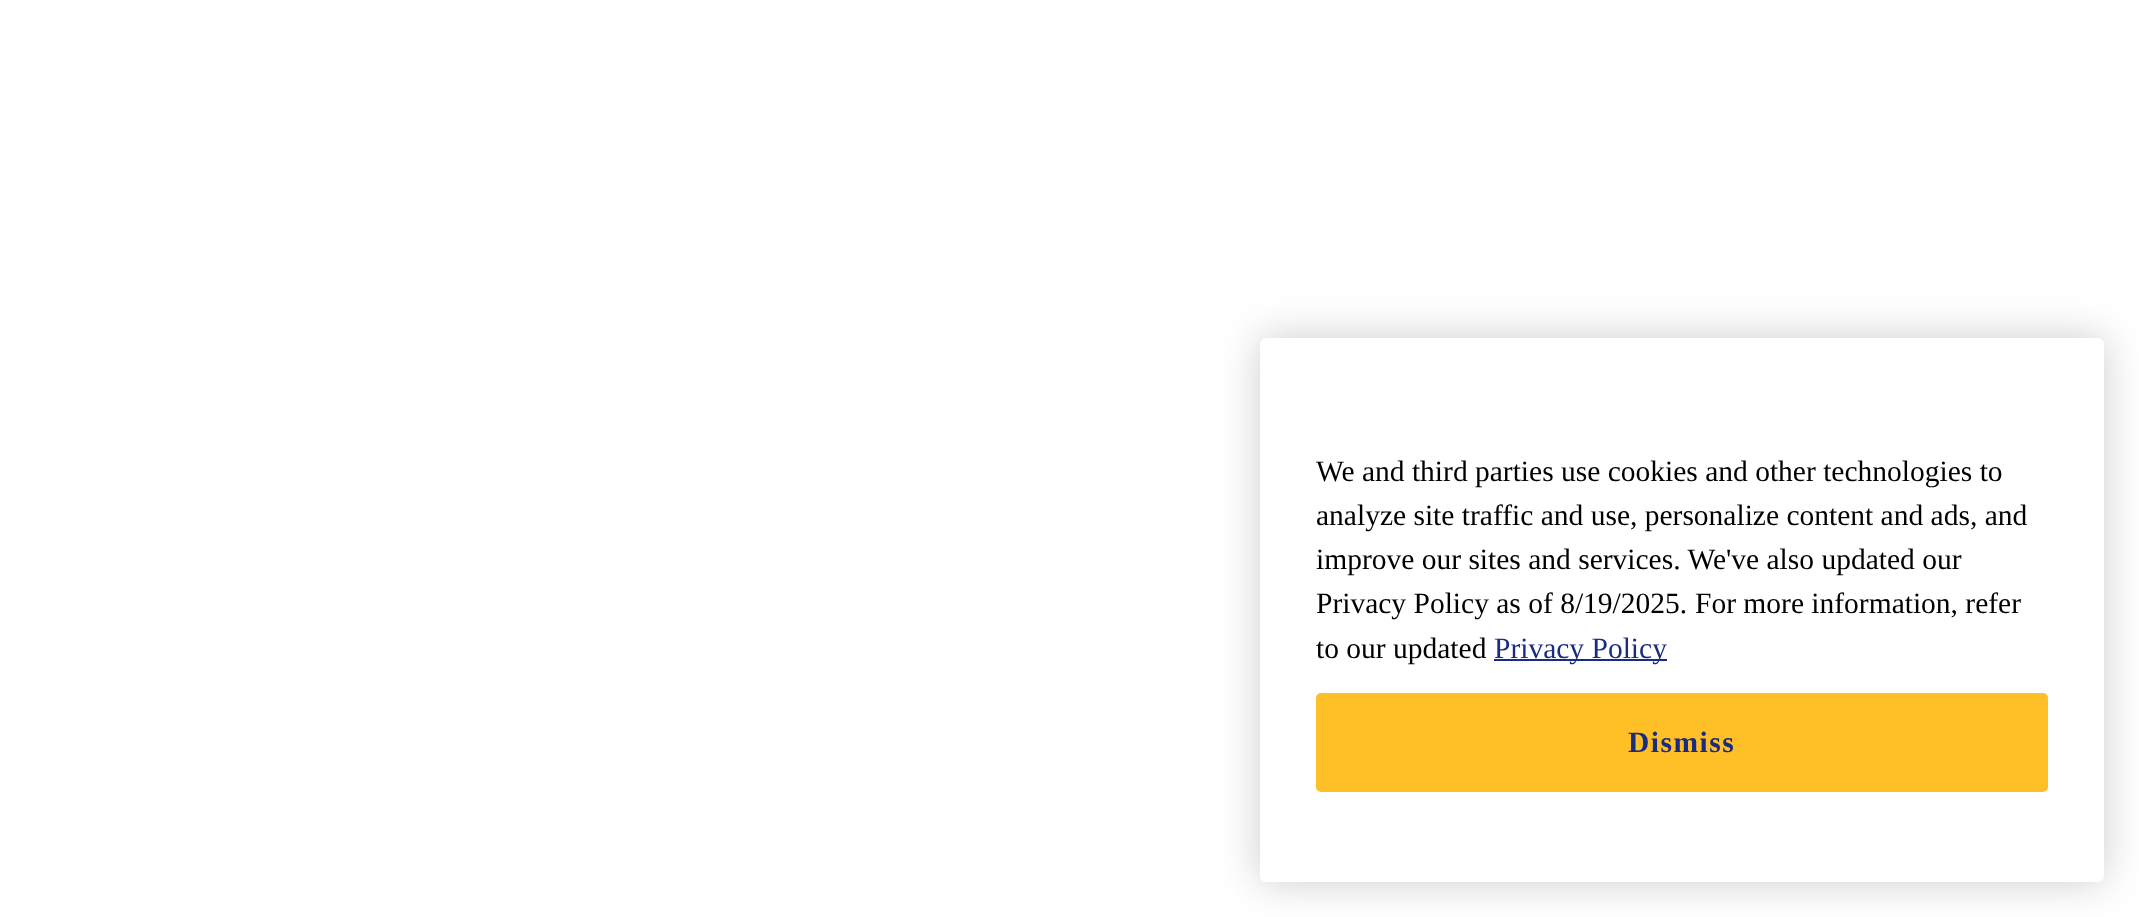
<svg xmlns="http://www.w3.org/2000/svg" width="2139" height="917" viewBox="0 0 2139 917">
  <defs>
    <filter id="blur1" x="-50%" y="-200%" width="200%" height="500%"><feGaussianBlur stdDeviation="20"/></filter>
  </defs>
  <rect width="100%" height="100%" fill="#ffffff"/>
  <rect x="1260" y="338" width="844" height="544" rx="6" fill="#000000" fill-opacity="0.2" filter="url(#blur1)"/>
  <rect x="1260" y="338" width="844" height="544" rx="6" fill="#ffffff"/>
  <text x="1316" y="481" font-family="Liberation Serif" font-size="29.5" fill="#000000">We and third parties use cookies and other technologies to</text>
  <text x="1316" y="525" font-family="Liberation Serif" font-size="29.5" fill="#000000">analyze site traffic and use, personalize content and ads, and</text>
  <text x="1316" y="569" font-family="Liberation Serif" font-size="29.5" fill="#000000">improve our sites and services. We've also updated our</text>
  <text x="1316" y="613" font-family="Liberation Serif" font-size="29.5" fill="#000000">Privacy Policy as of 8/19/2025.</text>
  <text x="1695" y="613" font-family="Liberation Serif" font-size="29.5" fill="#000000">For more information, refer</text>
  <text x="1316" y="658" font-family="Liberation Serif" font-size="29.5" fill="#000000">to our updated</text>
  <rect x="1494" y="659" width="173" height="2" fill="#1a2c80"/>
  <text x="1494" y="658" font-family="Liberation Serif" font-size="29.5" fill="#1a2c80">Privacy Policy</text>
  <rect x="1317" y="694" width="730" height="97" rx="4" fill="#ffbf27" stroke="#ffbf27" stroke-width="2"/>
  <text x="1628" y="752" font-family="Liberation Serif" font-size="29.5" font-weight="bold" letter-spacing="1.5" fill="#1a2c80">Dismiss</text>
</svg>
